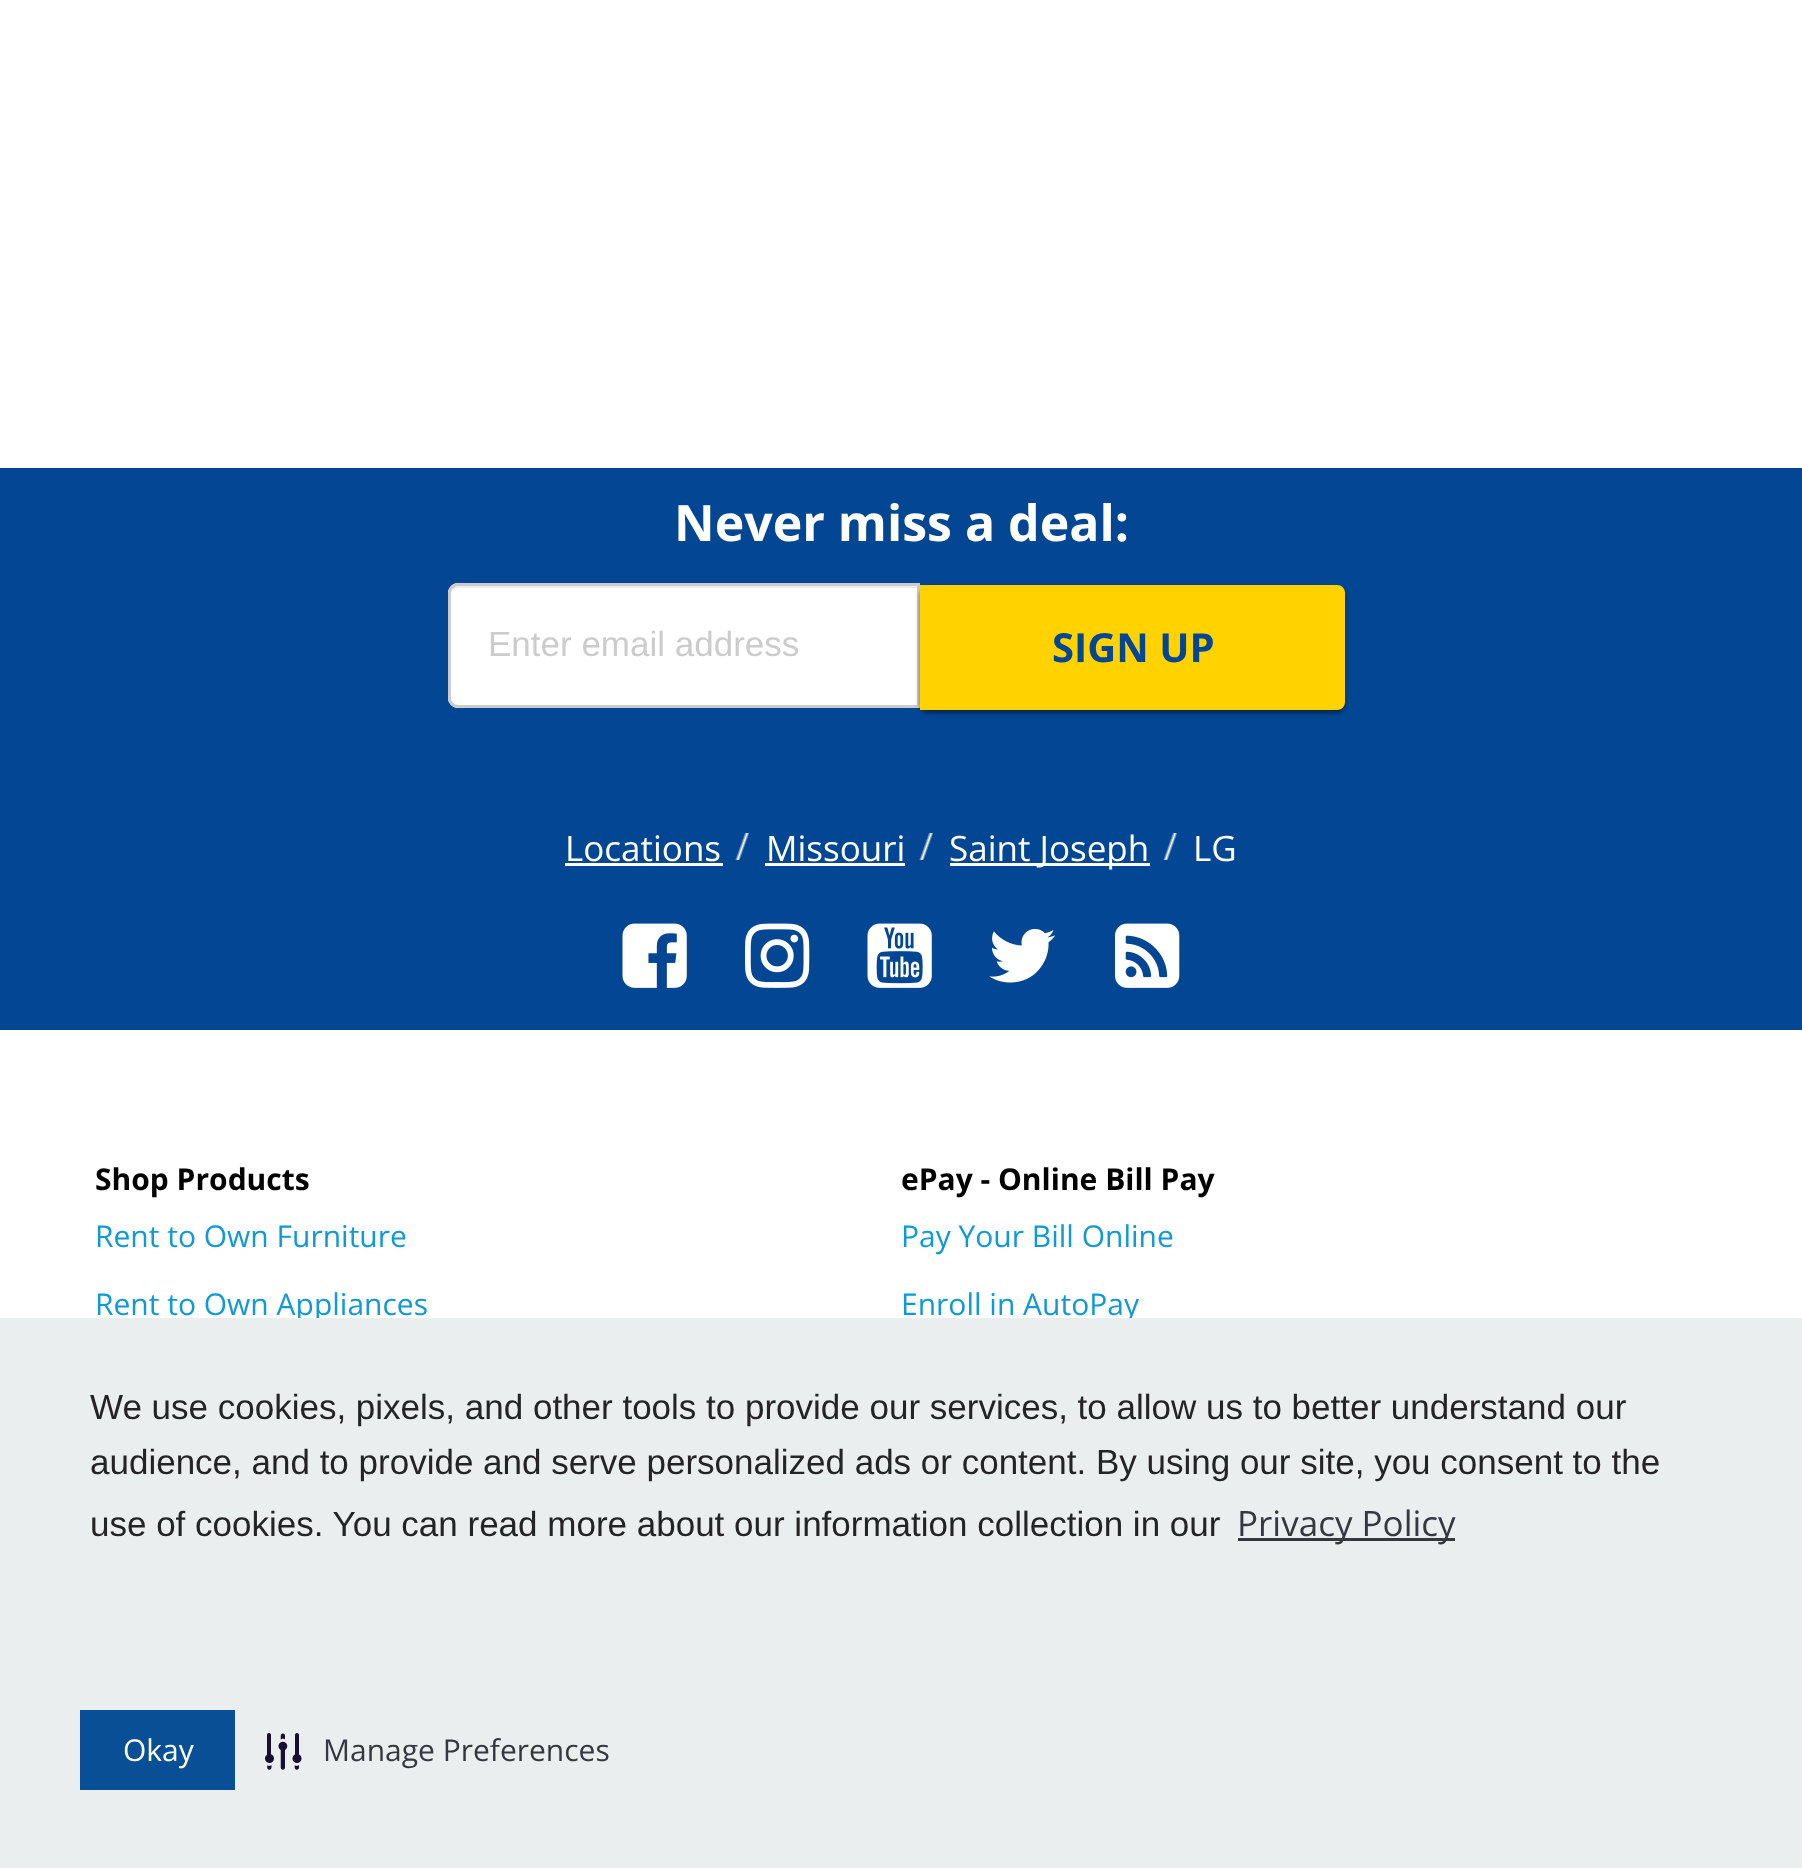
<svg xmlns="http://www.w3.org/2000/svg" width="1802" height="1868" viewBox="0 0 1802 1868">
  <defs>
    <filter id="blur1" x="-50%" y="-200%" width="200%" height="500%"><feGaussianBlur stdDeviation="2.5"/></filter>
    <linearGradient id="g1" gradientUnits="userSpaceOnUse" x1="759" y1="852" x2="728" y2="841"><stop offset="0.46" stop-color="#034694"/><stop offset="0.53" stop-color="#ffffff"/><stop offset="0.61" stop-color="#034694"/></linearGradient>
    <linearGradient id="g2" gradientUnits="userSpaceOnUse" x1="943" y1="852" x2="912" y2="841"><stop offset="0.46" stop-color="#034694"/><stop offset="0.53" stop-color="#ffffff"/><stop offset="0.61" stop-color="#034694"/></linearGradient>
    <linearGradient id="g3" gradientUnits="userSpaceOnUse" x1="1187" y1="852" x2="1156" y2="841"><stop offset="0.46" stop-color="#034694"/><stop offset="0.53" stop-color="#ffffff"/><stop offset="0.61" stop-color="#034694"/></linearGradient>
  </defs>
  <rect width="100%" height="100%" fill="#ffffff"/>
  <rect x="0" y="468" width="1802" height="562" fill="#034694"/>
  <text x="674" y="541" font-family="Open Sans" font-size="50" font-weight="bold" fill="#ffffff">Never miss a deal:</text>
  <path d="M458 583H920V708H458C452.5 708 448 703.5 448 698V593C448 587.5 452.5 583 458 583Z" fill="#ffffff"/>
  <path d="M458 588H918V585H458C452 585 450 590 450 595C450 591 453 588 458 588Z" fill="#ececec"/>
  <path d="M458 584.5H918.5V706.5H458C453.5 706.5 449.5 702.5 449.5 698V593C449.5 588.5 453.5 584.5 458 584.5Z" fill="none" stroke="#cccccc" stroke-width="3"/>
  <text x="488" y="656" font-family="Liberation Sans" font-size="35" fill="#cccccc">Enter email address</text>
  <rect x="920" y="588" width="425" height="125" rx="8" fill="#000000" fill-opacity="0.5" filter="url(#blur1)"/>
  <path d="M920 585H1337C1341.5 585 1345 588.5 1345 593V702C1345 706.5 1341.5 710 1337 710H920Z" fill="#ffd200"/>
  <text x="1052" y="662" font-family="Open Sans" font-size="40" font-weight="bold" fill="#034694">SIGN UP</text>
  <text x="565" y="861" font-family="Open Sans" font-size="35" fill="#ffffff">Locations</text>
  <rect x="565" y="863" width="158" height="3" fill="#ffffff"/>
  <rect x="735" y="833" width="14" height="27" fill="url(#g1)"/>
  <text x="766" y="861" font-family="Open Sans" font-size="35" fill="#ffffff">Missouri</text>
  <rect x="765" y="863" width="140" height="3" fill="#ffffff"/>
  <rect x="919" y="833" width="14" height="27" fill="url(#g2)"/>
  <rect x="950" y="863" width="200" height="3" fill="#ffffff"/>
  <text x="949" y="861" font-family="Open Sans" font-size="35" fill="#ffffff">Saint Joseph</text>
  <rect x="1163" y="833" width="14" height="27" fill="url(#g3)"/>
  <text x="1193" y="861" font-family="Open Sans" font-size="35" fill="#ffffff">LG</text>
  <image x="622" y="923" width="65" height="65" href="img1.png"/>
  <image x="745" y="923" width="65" height="65" href="img2.png"/>
  <image x="867" y="923" width="65" height="65" href="img3.png"/>
  <image x="989" y="928" width="67" height="55" href="img4.png"/>
  <image x="1115" y="923" width="65" height="65" href="img5.png"/>
  <text x="95" y="1190" font-family="Open Sans" font-size="30" font-weight="bold" fill="#000000">Shop Products</text>
  <text x="95" y="1247" font-family="Open Sans" font-size="30" fill="#0f99d6">Rent to Own Furniture</text>
  <text x="95" y="1315" font-family="Open Sans" font-size="30" fill="#0f99d6">Rent to Own Appliances</text>
  <text x="901" y="1190" font-family="Open Sans" font-size="30" font-weight="bold" fill="#000000">ePay - Online Bill Pay</text>
  <text x="901" y="1247" font-family="Open Sans" font-size="30" fill="#0f99d6">Pay Your Bill Online</text>
  <text x="901" y="1315" font-family="Open Sans" font-size="30" fill="#0f99d6">Enroll in AutoPay</text>
  <rect x="0" y="1318" width="1802" height="550" fill="#ebeeef"/>
  <text x="90" y="1419" font-family="Liberation Sans" font-size="35" fill="#242424">We use cookies, pixels, and other tools to provide our services, to allow us to better understand our</text>
  <text x="90" y="1474" font-family="Liberation Sans" font-size="35" fill="#242424">audience, and to provide and serve personalized ads or content. By using our site, you consent to the</text>
  <text x="90" y="1536" font-family="Liberation Sans" font-size="35" fill="#242424">use of cookies. You can read more about our information collection in our</text>
  <rect x="1238" y="1538" width="217" height="3" fill="#35383e"/>
  <text x="1237" y="1536" font-family="Open Sans" font-size="35" fill="#35383e">Privacy Policy</text>
  <rect x="80" y="1710" width="155" height="80" fill="#094f95"/>
  <text x="123" y="1761" font-family="Open Sans" font-size="30" fill="#ffffff">Okay</text>
  <image x="265" y="1733" width="37" height="37" href="img6.png"/>
  <text x="323" y="1761" font-family="Open Sans" font-size="30" fill="#35383e">Manage Preferences</text>
</svg>
